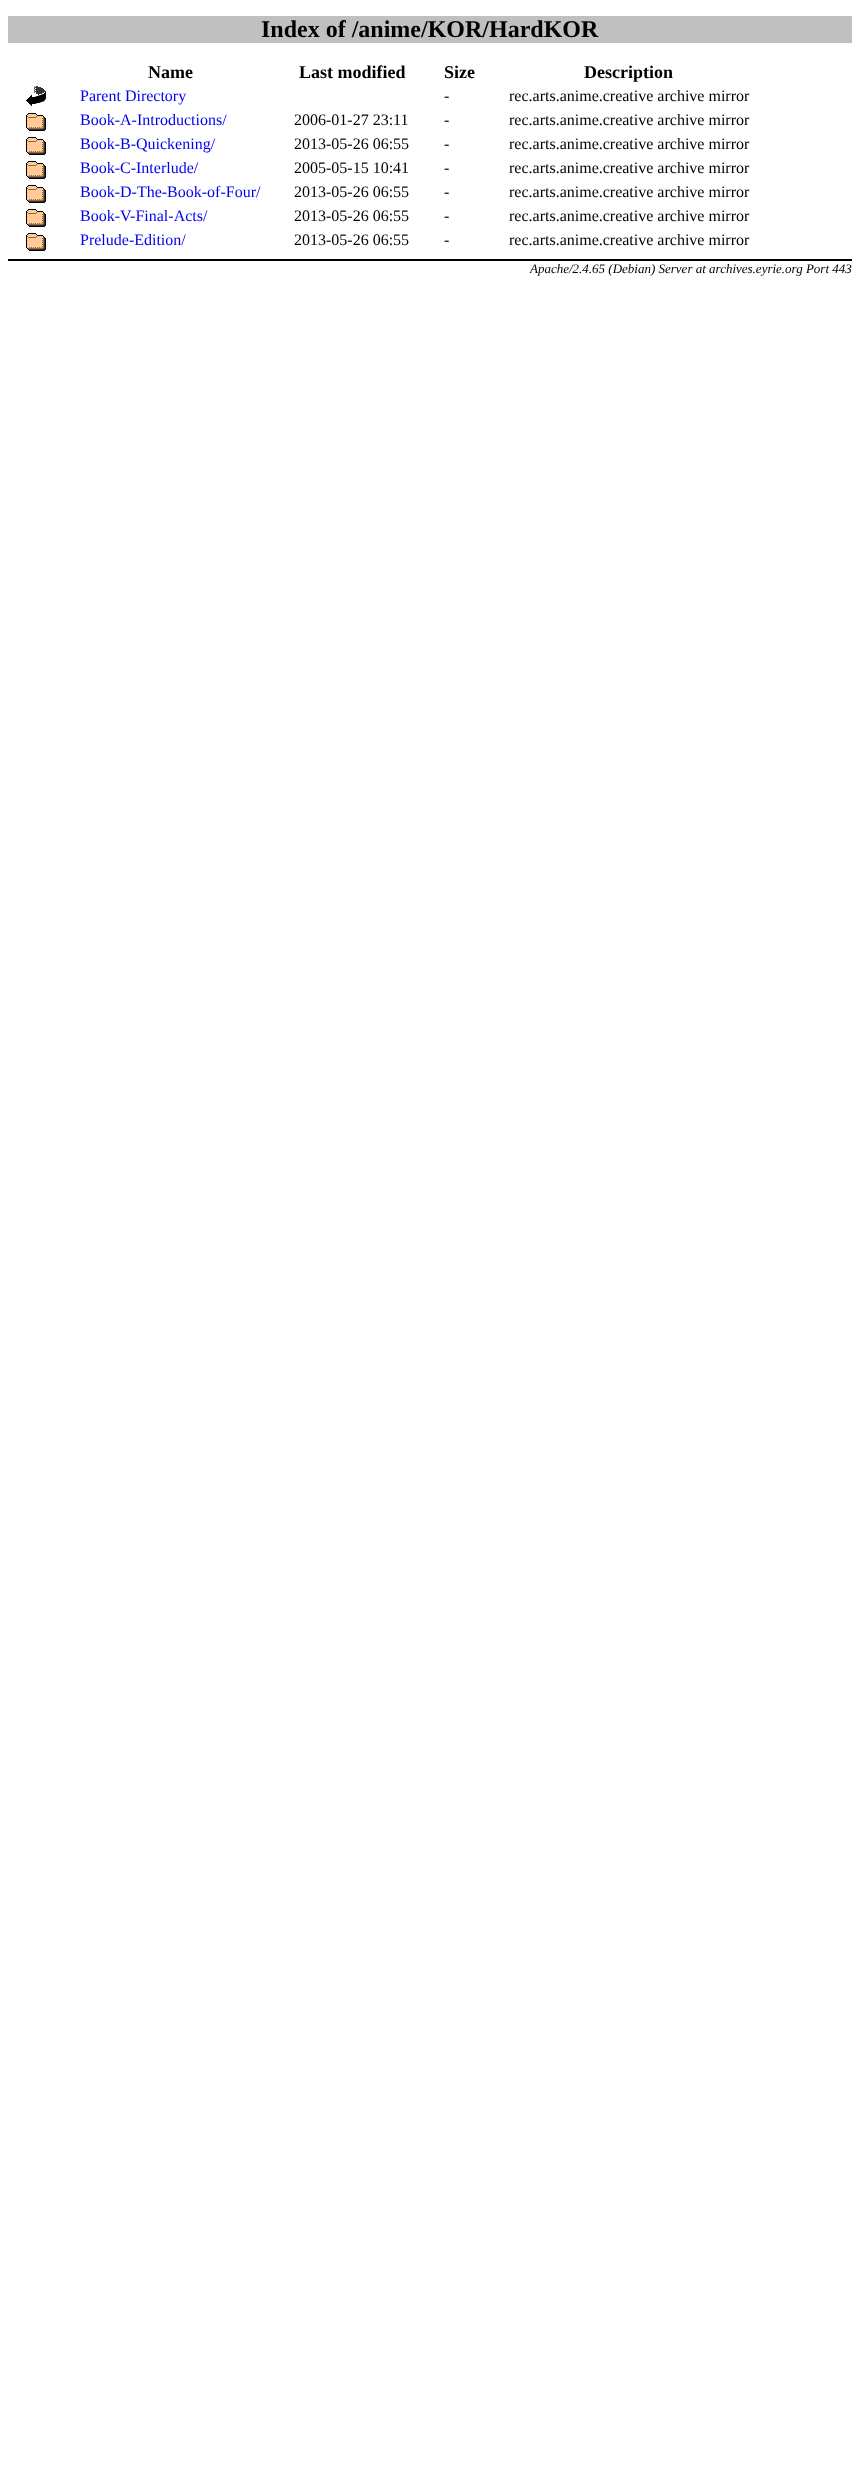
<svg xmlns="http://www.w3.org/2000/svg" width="860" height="2486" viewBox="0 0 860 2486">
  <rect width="100%" height="100%" fill="#ffffff"/>
  <rect x="8" y="16" width="844" height="27" fill="#c0c0c0"/>
  <text x="261" y="37" font-family="Liberation Serif" font-size="24" font-weight="bold" fill="#000000">Index of /anime/KOR/HardKOR</text>
  <text x="148" y="78" font-family="Liberation Serif" font-size="18" font-weight="bold" fill="#000000">Name</text>
  <text x="299" y="78" font-family="Liberation Serif" font-size="18" font-weight="bold" fill="#000000">Last modified</text>
  <text x="444" y="78" font-family="Liberation Serif" font-size="18" font-weight="bold" fill="#000000">Size</text>
  <text x="584" y="78" font-family="Liberation Serif" font-size="18" font-weight="bold" fill="#000000">Description</text>
  <image x="26" y="86" width="20" height="20" href="img1.png"/>
  <text x="80" y="101" font-family="Liberation Serif" font-size="16" fill="#0000ee">Parent Directory</text>
  <text x="444" y="101" font-family="Liberation Serif" font-size="16" fill="#000000">-</text>
  <text x="509" y="101" font-family="Liberation Serif" font-size="16" fill="#000000">rec.arts.anime.creative archive mirror</text>
  <image x="26" y="113" width="20" height="18" href="img2.png"/>
  <text x="80" y="125" font-family="Liberation Serif" font-size="16" fill="#0000ee">Book-A-Introductions/</text>
  <text x="294" y="125" font-family="Liberation Serif" font-size="16" fill="#000000">2006-01-27 23:11</text>
  <text x="444" y="125" font-family="Liberation Serif" font-size="16" fill="#000000">-</text>
  <text x="509" y="125" font-family="Liberation Serif" font-size="16" fill="#000000">rec.arts.anime.creative archive mirror</text>
  <image x="26" y="137" width="20" height="18" href="img2.png"/>
  <text x="80" y="149" font-family="Liberation Serif" font-size="16" fill="#0000ee">Book-B-Quickening/</text>
  <text x="294" y="149" font-family="Liberation Serif" font-size="16" fill="#000000">2013-05-26 06:55</text>
  <text x="444" y="149" font-family="Liberation Serif" font-size="16" fill="#000000">-</text>
  <text x="509" y="149" font-family="Liberation Serif" font-size="16" fill="#000000">rec.arts.anime.creative archive mirror</text>
  <image x="26" y="161" width="20" height="18" href="img2.png"/>
  <text x="80" y="173" font-family="Liberation Serif" font-size="16" fill="#0000ee">Book-C-Interlude/</text>
  <text x="294" y="173" font-family="Liberation Serif" font-size="16" fill="#000000">2005-05-15 10:41</text>
  <text x="444" y="173" font-family="Liberation Serif" font-size="16" fill="#000000">-</text>
  <text x="509" y="173" font-family="Liberation Serif" font-size="16" fill="#000000">rec.arts.anime.creative archive mirror</text>
  <image x="26" y="185" width="20" height="18" href="img2.png"/>
  <text x="80" y="197" font-family="Liberation Serif" font-size="16" fill="#0000ee">Book-D-The-Book-of-Four/</text>
  <text x="294" y="197" font-family="Liberation Serif" font-size="16" fill="#000000">2013-05-26 06:55</text>
  <text x="444" y="197" font-family="Liberation Serif" font-size="16" fill="#000000">-</text>
  <text x="509" y="197" font-family="Liberation Serif" font-size="16" fill="#000000">rec.arts.anime.creative archive mirror</text>
  <image x="26" y="209" width="20" height="18" href="img2.png"/>
  <text x="80" y="221" font-family="Liberation Serif" font-size="16" fill="#0000ee">Book-V-Final-Acts/</text>
  <text x="294" y="221" font-family="Liberation Serif" font-size="16" fill="#000000">2013-05-26 06:55</text>
  <text x="444" y="221" font-family="Liberation Serif" font-size="16" fill="#000000">-</text>
  <text x="509" y="221" font-family="Liberation Serif" font-size="16" fill="#000000">rec.arts.anime.creative archive mirror</text>
  <image x="26" y="233" width="20" height="18" href="img2.png"/>
  <text x="80" y="245" font-family="Liberation Serif" font-size="16" fill="#0000ee">Prelude-Edition/</text>
  <text x="294" y="245" font-family="Liberation Serif" font-size="16" fill="#000000">2013-05-26 06:55</text>
  <text x="444" y="245" font-family="Liberation Serif" font-size="16" fill="#000000">-</text>
  <text x="509" y="245" font-family="Liberation Serif" font-size="16" fill="#000000">rec.arts.anime.creative archive mirror</text>
  <rect x="8" y="259" width="844" height="2" fill="#000000"/>
  <text x="530" y="273" font-family="Liberation Serif" font-size="13" font-style="italic" fill="#000000">Apache/2.4.65 (Debian) Server at archives.eyrie.org Port 443</text>
</svg>
